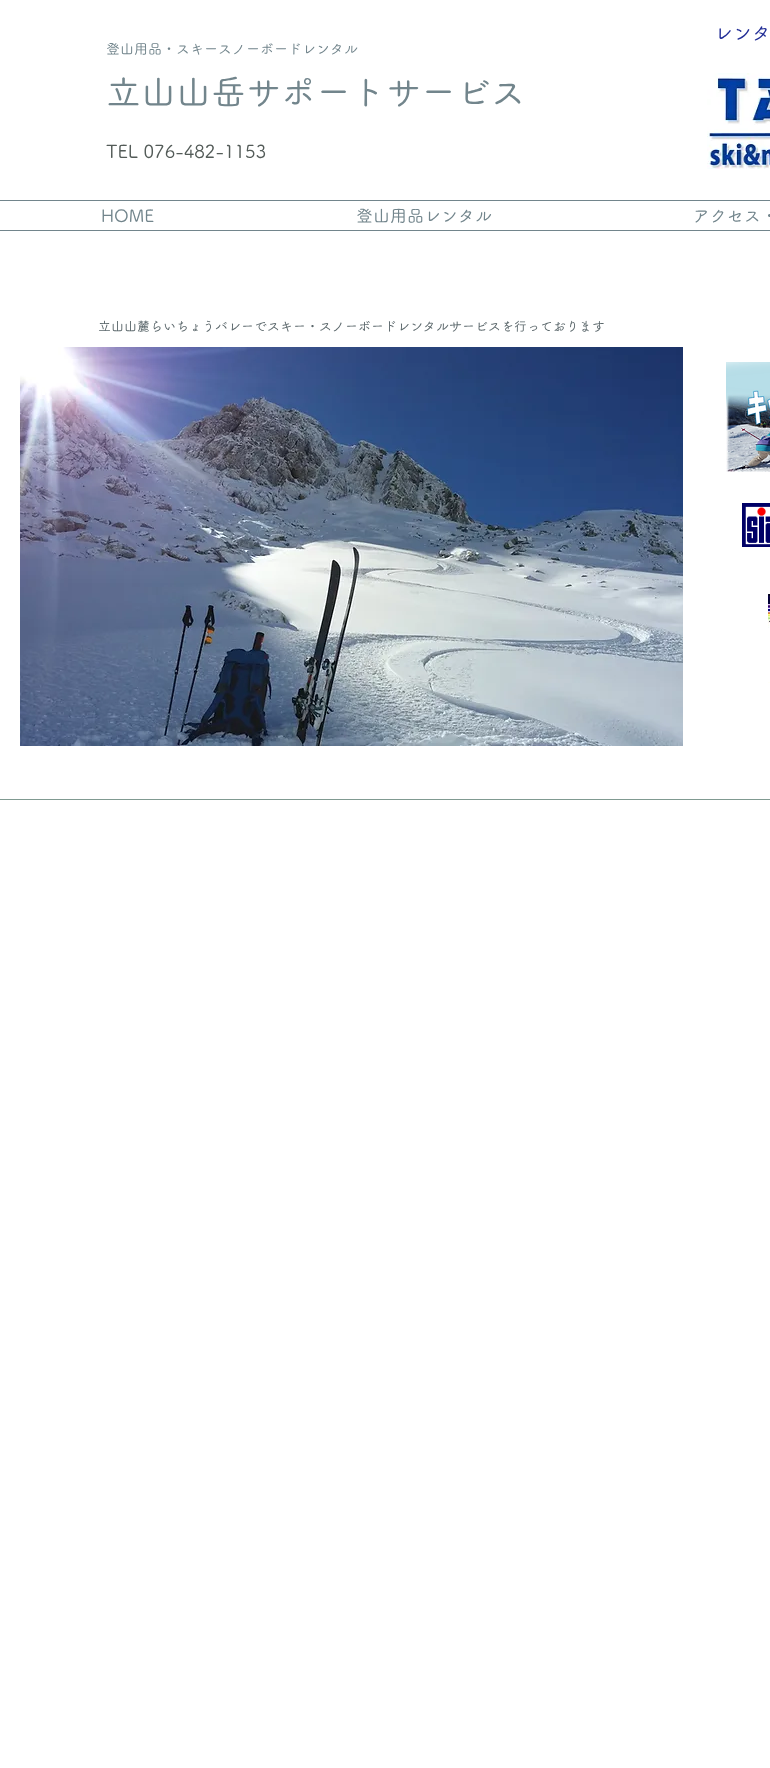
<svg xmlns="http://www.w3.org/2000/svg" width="770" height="1768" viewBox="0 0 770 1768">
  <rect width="100%" height="100%" fill="#ffffff"/>
  <text x="714" y="40" font-family="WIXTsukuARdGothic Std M" font-size="19" font-weight="500" fill="#212d96">レンタ</text>
  <text x="106" y="54" font-family="WIXTsukuARdGothic Std M" font-size="14" font-weight="500" fill="#72858c">登山用品・スキースノーボードレンタル</text>
  <text x="106" y="105" font-family="WIXTsukuARdGothic Std M" font-size="35" font-weight="500" fill="#72858c">立山山岳サポートサービス</text>
  <image x="707" y="73" width="63" height="96" href="img1.png"/>
  <text x="106" y="158" font-family="WIXTsukuARdGothic Std M" font-size="18" font-weight="500" fill="#535b58">TEL 076-482-1153</text>
  <rect x="0" y="200" width="770" height="1" fill="#72858c"/>
  <rect x="0" y="230" width="770" height="1" fill="#72858c"/>
  <text x="101" y="222" font-family="WIXTsukuARdGothic Std M" font-size="17" font-weight="500" fill="#72858c">HOME</text>
  <text x="356" y="222" font-family="WIXTsukuARdGothic Std M" font-size="17" font-weight="500" fill="#72858c">登山用品レンタル</text>
  <text x="693" y="222" font-family="WIXTsukuARdGothic Std M" font-size="17" font-weight="500" fill="#72858c">アクセス・</text>
  <text x="98" y="331" font-family="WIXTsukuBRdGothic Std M" font-size="13" font-weight="500" fill="#5c686c">立山山麓らいちょうバレーでスキー・スノーボードレンタルサービスを行っております</text>
  <image x="20" y="347" width="663" height="399" href="img2.png"/>
  <image x="726" y="362" width="44" height="110" href="img3.png"/>
  <image x="742" y="503" width="28" height="44" href="img4.png"/>
  <image x="768" y="594" width="2" height="34" href="img5.png"/>
  <rect x="768" y="682" width="2" height="1" fill="#fffff9"/>
  <rect x="0" y="799" width="770" height="1" fill="#809a91"/>
</svg>
